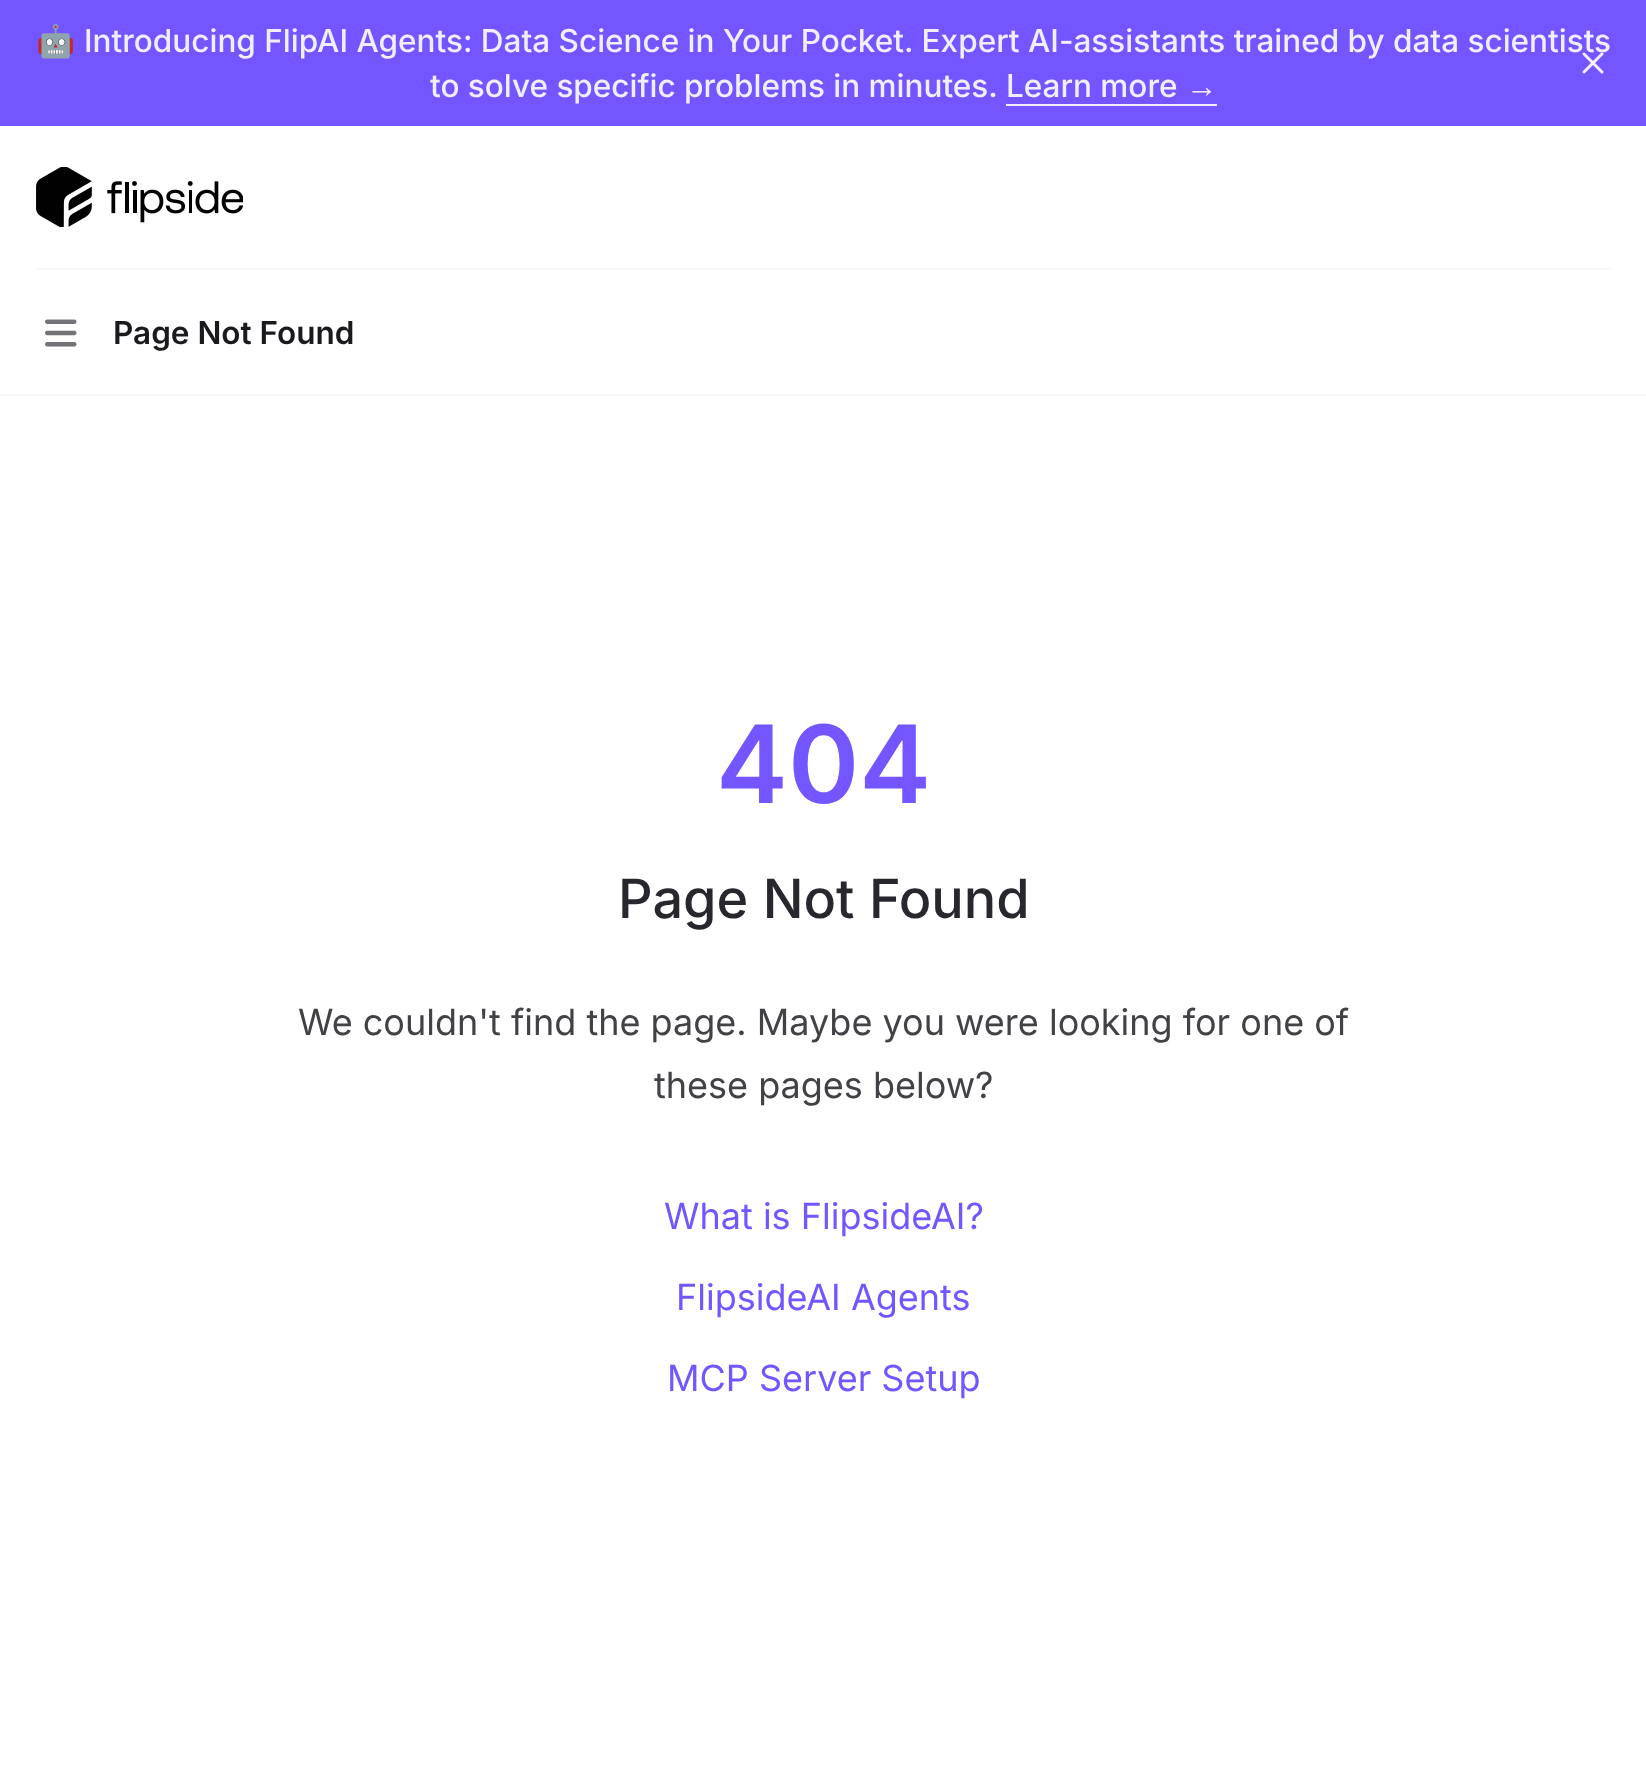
<svg xmlns="http://www.w3.org/2000/svg" width="1646" height="1774" viewBox="0 0 1646 1774">
  <rect width="100%" height="100%" fill="#ffffff"/>
  <rect x="0" y="0" width="1646" height="126" fill="#7356ff"/>
  <text x="36" y="52" font-family="Noto Color Emoji" font-size="31.5" fill="#f1eeff">🤖</text>
  <text x="84" y="52" font-family="Inter" font-size="31.5" font-weight="500" fill="#f1eeff">Introducing FlipAI Agents: Data Science in Your Pocket. Expert AI-assistants trained by data scientists</text>
  <text x="430" y="97" font-family="Inter" font-size="31.5" font-weight="500" fill="#f1eeff">to solve specific problems in minutes. Learn more</text>
  <text x="1186" y="97" font-family="Liberation Sans" font-size="31.5" fill="#f1eeff">→</text>
  <rect x="1006" y="104" width="211" height="2" fill="#f1eeff"/>
  <path d="M1602 54L1584 72" fill="none" stroke="#f1eeff" stroke-width="3" stroke-linecap="round" stroke-linejoin="round"/>
  <path d="M1584 54L1602 72" fill="none" stroke="#ffffff" stroke-opacity="0.9" stroke-width="3" stroke-linecap="round" stroke-linejoin="round"/>
  <rect x="36" y="268" width="1575" height="2" fill="#f8f8f8"/>
  <image x="36" y="167" width="207" height="60" href="img1.png"/>
  <image x="45" y="319" width="32" height="28" href="img2.png"/>
  <text x="113" y="344" font-family="Inter" font-size="31.5" font-weight="600" fill="#1a191e">Page Not Found</text>
  <rect x="0" y="394" width="1646" height="2" fill="#f8f8f8"/>
  <text x="716" y="803" font-family="Inter" font-size="108" font-weight="600" fill="#7356ff">404</text>
  <text x="618" y="918" font-family="Inter" font-size="54" font-weight="500" fill="#28272d">Page Not Found</text>
  <text x="298" y="1035" font-family="Inter" font-size="36" fill="#424146">We couldn't find the page. Maybe you were looking for one of</text>
  <text x="654" y="1098" font-family="Inter" font-size="36" fill="#424146">these pages below?</text>
  <text x="664" y="1229" font-family="Inter" font-size="36" fill="#7356ff">What is FlipsideAI?</text>
  <text x="676" y="1310" font-family="Inter" font-size="36" fill="#7356ff">FlipsideAI Agents</text>
  <text x="667" y="1391" font-family="Inter" font-size="36" fill="#7356ff">MCP Server Setup</text>
</svg>
